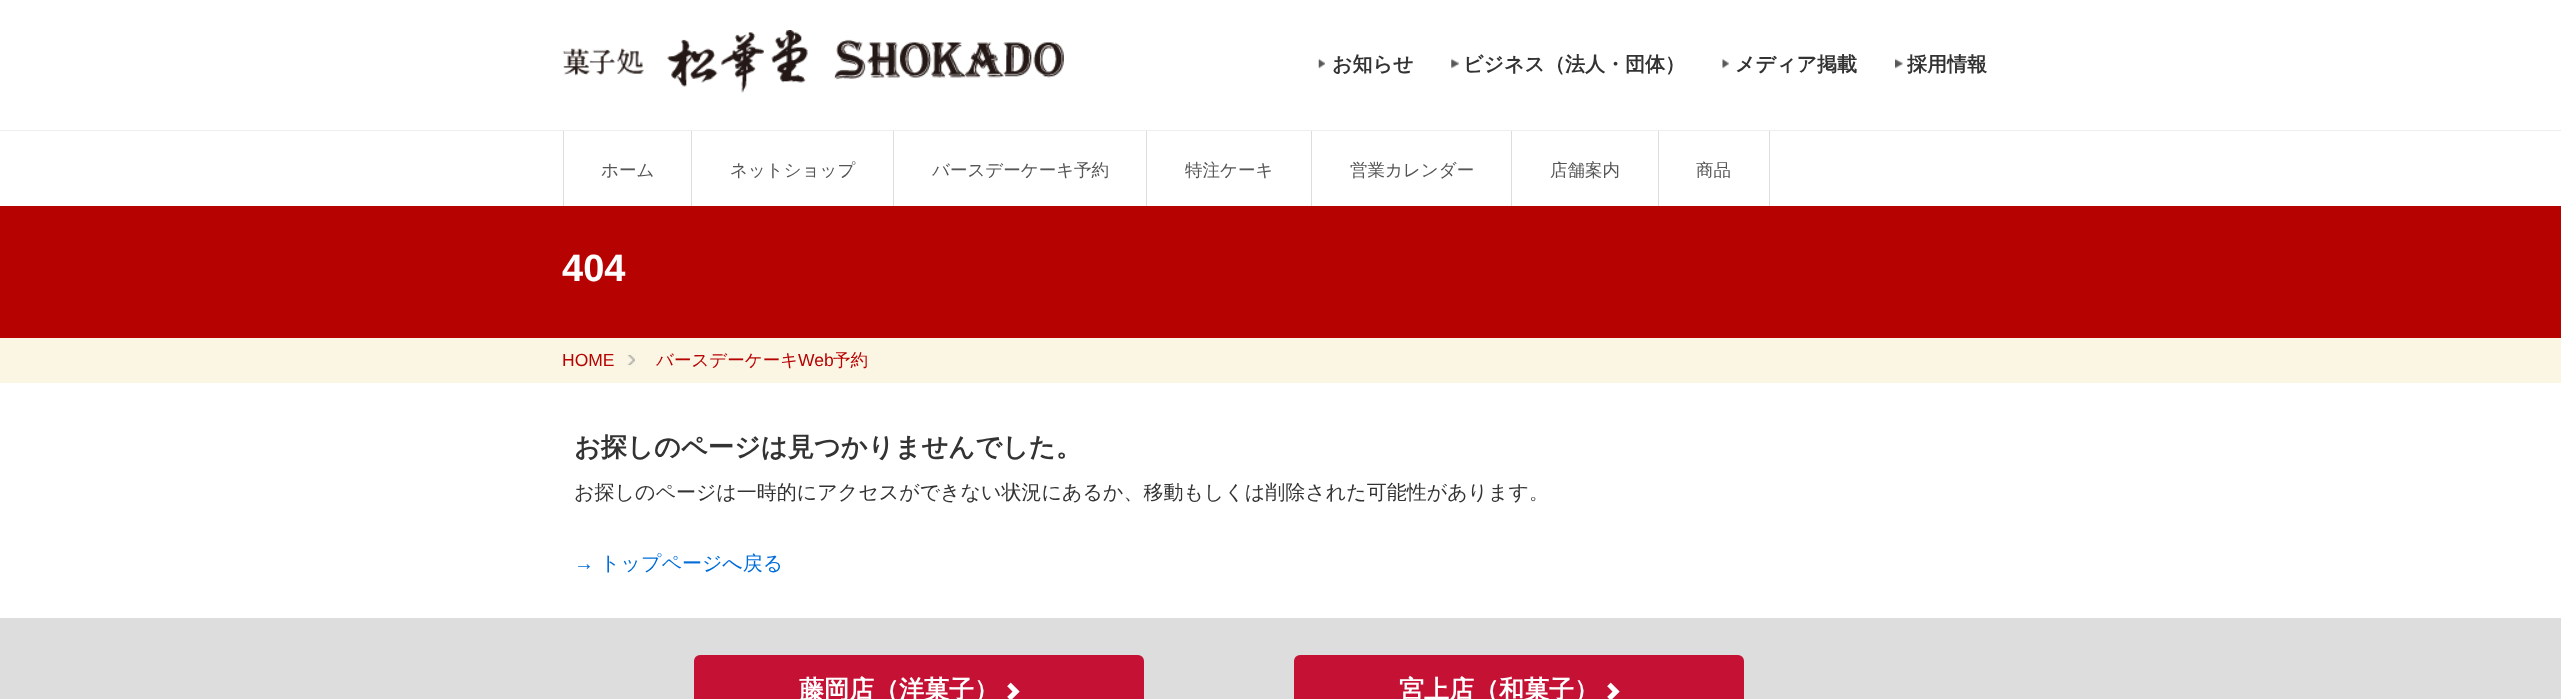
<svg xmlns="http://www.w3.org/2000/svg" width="2561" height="699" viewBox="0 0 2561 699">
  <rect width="100%" height="100%" fill="#ffffff"/>
  <image x="562" y="30" width="502" height="63" href="img1.png"/>
  <image x="1318" y="58" width="7" height="11" href="img2.png"/>
  <text x="1332" y="71" font-family="WenQuanYi Zen Hei" font-size="20" font-weight="bold" fill="#333333">お知らせ</text>
  <image x="1451" y="58" width="8" height="11" href="img3.png"/>
  <text x="1463" y="71" font-family="WenQuanYi Zen Hei" font-size="20" font-weight="bold" fill="#333333">ビジネス（法人・団体）</text>
  <image x="1722" y="58" width="7" height="11" href="img4.png"/>
  <text x="1735" y="71" font-family="WenQuanYi Zen Hei" font-size="20" font-weight="bold" fill="#333333">メディア掲載</text>
  <image x="1895" y="58" width="8" height="11" href="img5.png"/>
  <text x="1907" y="71" font-family="WenQuanYi Zen Hei" font-size="20" font-weight="bold" fill="#333333">採用情報</text>
  <rect x="0" y="130" width="2561" height="1" fill="#eeeeee"/>
  <rect x="0" y="206" width="2561" height="132" fill="#b70202"/>
  <rect x="563" y="131" width="1" height="75" fill="#dddddd"/>
  <text x="601" y="176" font-family="WenQuanYi Zen Hei" font-size="17.5" font-weight="500" fill="#555555">ホーム</text>
  <rect x="691" y="131" width="1" height="75" fill="#dddddd"/>
  <text x="730" y="176" font-family="WenQuanYi Zen Hei" font-size="17.5" font-weight="500" fill="#555555">ネットショップ</text>
  <rect x="893" y="131" width="1" height="75" fill="#dddddd"/>
  <text x="932" y="176" font-family="WenQuanYi Zen Hei" font-size="17.5" font-weight="500" fill="#555555">バースデーケーキ予約</text>
  <rect x="1146" y="131" width="1" height="75" fill="#dddddd"/>
  <text x="1185" y="176" font-family="WenQuanYi Zen Hei" font-size="17.5" font-weight="500" fill="#555555">特注ケーキ</text>
  <rect x="1311" y="131" width="1" height="75" fill="#dddddd"/>
  <text x="1350" y="176" font-family="WenQuanYi Zen Hei" font-size="17.5" font-weight="500" fill="#555555">営業カレンダー</text>
  <rect x="1511" y="131" width="1" height="75" fill="#dddddd"/>
  <text x="1550" y="176" font-family="WenQuanYi Zen Hei" font-size="17.5" font-weight="500" fill="#555555">店舗案内</text>
  <rect x="1769" y="131" width="1" height="75" fill="#dddddd"/>
  <rect x="1658" y="131" width="1" height="75" fill="#dddddd"/>
  <text x="1696" y="176" font-family="WenQuanYi Zen Hei" font-size="17.5" font-weight="500" fill="#555555">商品</text>
  <text x="562" y="281" font-family="Liberation Sans" font-size="38" font-weight="bold" fill="#ffffff">404</text>
  <rect x="0" y="338" width="2561" height="45" fill="#fbf6e4"/>
  <text x="562" y="366" font-family="Liberation Sans" font-size="17.5" fill="#b70202">HOME</text>
  <image x="627" y="355" width="8" height="10" href="img6.png"/>
  <text x="656" y="366" font-family="WenQuanYi Zen Hei" font-size="17.5" font-weight="500" fill="#b70202">バースデーケーキ</text>
  <text x="798" y="366" font-family="Liberation Sans" font-size="17.5" fill="#b70202">Web</text>
  <text x="833" y="366" font-family="WenQuanYi Zen Hei" font-size="17.5" font-weight="500" fill="#b70202">予約</text>
  <text x="574" y="456" font-family="WenQuanYi Zen Hei" font-size="26.25" font-weight="bold" fill="#333333">お探しのページは見つかりませんでした。</text>
  <text x="574" y="499" font-family="WenQuanYi Zen Hei" font-size="20" font-weight="500" fill="#333333">お探しのページは一時的にアクセスができない状況にあるか、移動もしくは削除された可能性があります。</text>
  <text x="574" y="570" font-family="Liberation Sans" font-size="20" fill="#006dd9">→</text>
  <text x="600" y="570" font-family="WenQuanYi Zen Hei" font-size="20" font-weight="500" fill="#006dd9">トップページへ戻る</text>
  <rect x="0" y="618" width="2561" height="81" fill="#dddddd"/>
  <rect x="694" y="655" width="450" height="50" rx="6" fill="#c41134"/>
  <text x="799" y="698" font-family="WenQuanYi Zen Hei" font-size="25" font-weight="bold" fill="#ffffff">藤岡店（洋菓子）</text>
  <image x="1007" y="682" width="13" height="17" href="img7.png"/>
  <rect x="1294" y="655" width="450" height="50" rx="6" fill="#c41134"/>
  <text x="1399" y="698" font-family="WenQuanYi Zen Hei" font-size="25" font-weight="bold" fill="#ffffff">宮上店（和菓子）</text>
  <image x="1607" y="682" width="13" height="17" href="img7.png"/>
</svg>
